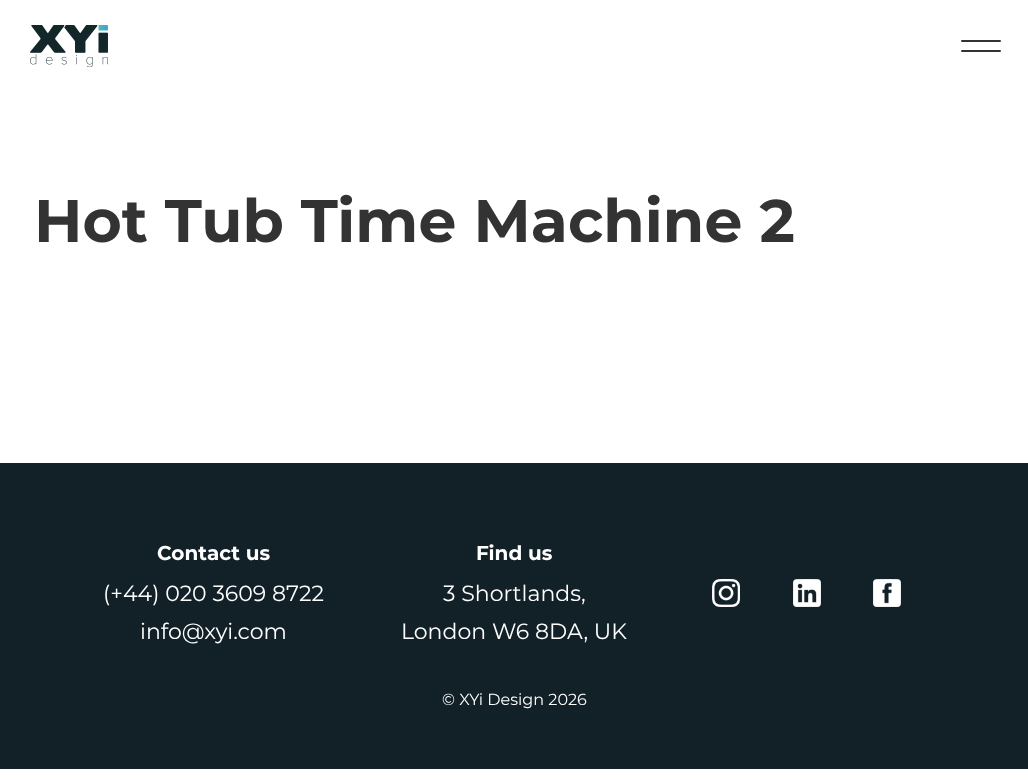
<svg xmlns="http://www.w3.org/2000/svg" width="1028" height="781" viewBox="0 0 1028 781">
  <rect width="100%" height="100%" fill="#ffffff"/>
  <image x="30" y="25" width="78" height="42" href="img1.png"/>
  <rect x="961" y="40" width="40" height="2" rx="1" fill="#333333"/>
  <rect x="961" y="50" width="40" height="2" rx="1" fill="#333333"/>
  <text x="34" y="242" font-family="Montserrat" font-size="60" font-weight="bold" fill="#333333">Hot Tub Time Machine 2</text>
  <rect x="0" y="463" width="1028" height="306" fill="#122027"/>
  <text x="157" y="560" font-family="Montserrat" font-size="20" font-weight="bold" fill="#ffffff">Contact us</text>
  <text x="103" y="601" font-family="Montserrat" font-size="22" fill="#ffffff">(+44) 020 3609 8722</text>
  <text x="140" y="639" font-family="Montserrat" font-size="22" fill="#ffffff">info@xyi.com</text>
  <text x="476" y="560" font-family="Montserrat" font-size="20" font-weight="bold" fill="#ffffff">Find us</text>
  <text x="443" y="601" font-family="Montserrat" font-size="22" fill="#ffffff">3 Shortlands,</text>
  <text x="401" y="639" font-family="Montserrat" font-size="22" fill="#ffffff">London W6 8DA, UK</text>
  <image x="712" y="579" width="28" height="28" href="img2.png"/>
  <image x="793" y="579" width="28" height="28" href="img3.png"/>
  <image x="873" y="579" width="28" height="28" href="img4.png"/>
  <text x="442" y="705" font-family="Montserrat" font-size="16" fill="#ffffff">© XYi Design 2026</text>
</svg>
